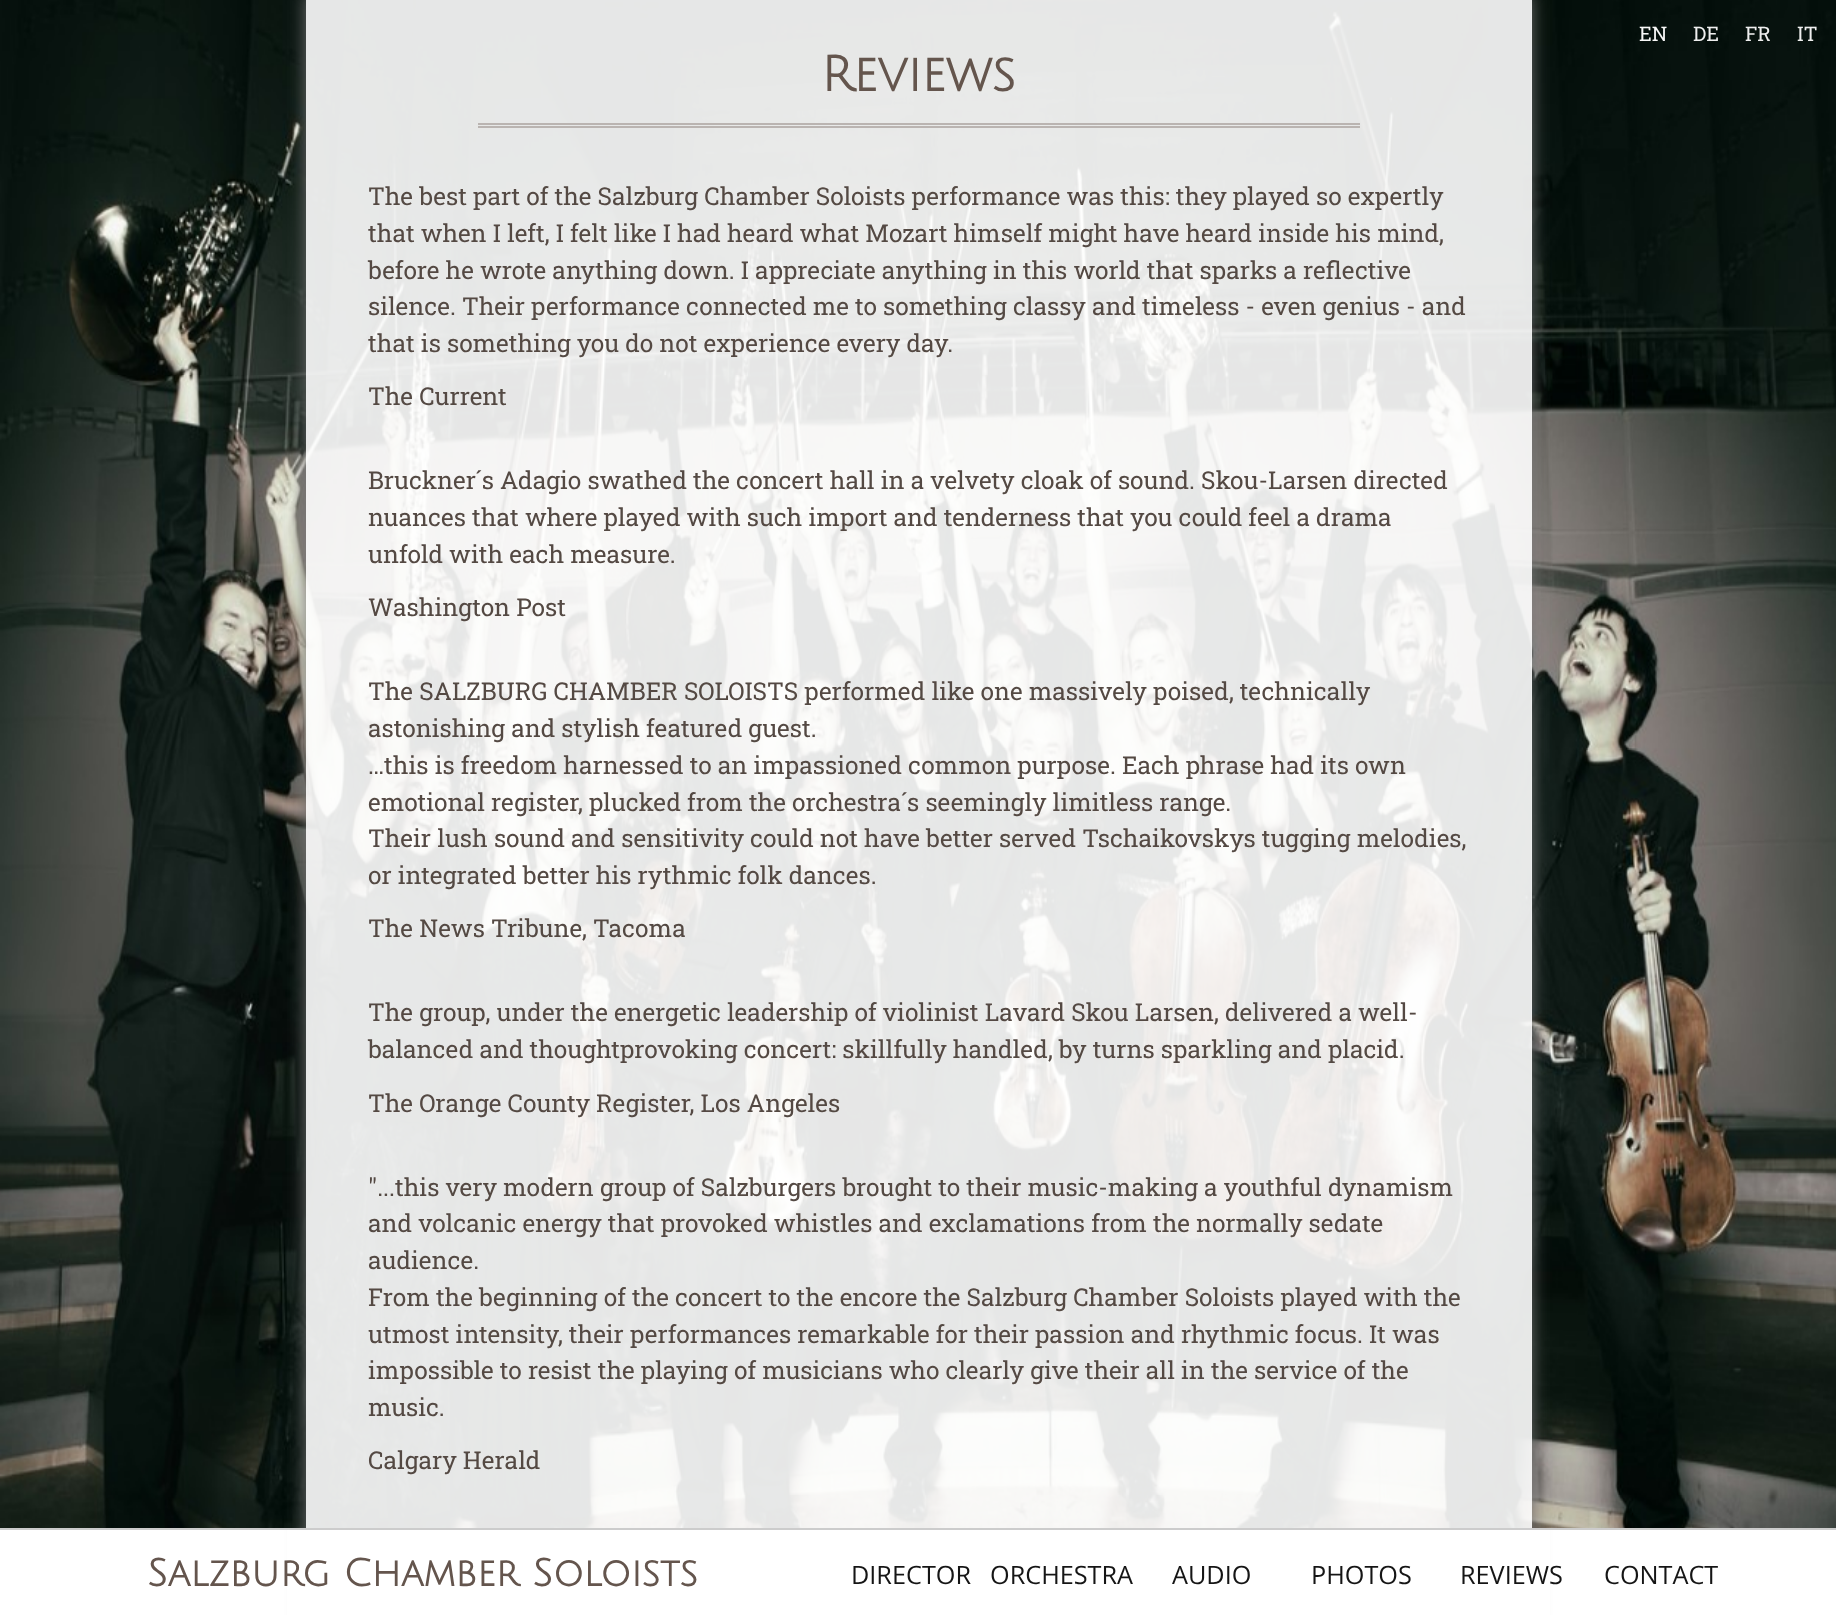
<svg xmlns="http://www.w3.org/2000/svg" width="1836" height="1615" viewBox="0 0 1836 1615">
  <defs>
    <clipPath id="clip1"><path d="M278 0H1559V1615H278ZM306-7H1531V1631H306Z" clip-rule="evenodd"/></clipPath>
    <filter id="blur1" x="-50%" y="-200%" width="200%" height="500%"><feGaussianBlur stdDeviation="9"/></filter>
  </defs>
  <rect width="100%" height="100%" fill="#ffffff"/>
  <image x="0" y="0" width="1836" height="1528" href="img1.png"/>
  <g clip-path="url(#clip1)">
    <rect x="306" y="-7" width="1225" height="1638" fill="#777777" filter="url(#blur1)"/>
  </g>
  <rect x="287" y="1530" width="1263" height="85" fill="#ffffff"/>
  <rect x="0" y="1528" width="1836" height="2" fill="#cccccc"/>
  <text x="147" y="1586" font-family="Julius Sans One" font-size="37.75" font-weight="bold" fill="#64554d">Salzburg Chamber Soloists</text>
  <text x="1639" y="41" font-family="Roboto Slab" font-size="20" fill="#f8f8f8">EN</text>
  <text x="1693" y="41" font-family="Roboto Slab" font-size="20" fill="#eeeeee">DE</text>
  <text x="1745" y="41" font-family="Roboto Slab" font-size="20" fill="#eeeeee">FR</text>
  <text x="1797" y="41" font-family="Roboto Slab" font-size="20" fill="#eeeeee">IT</text>
  <text x="851" y="1584" font-family="Open Sans" font-size="25.25" fill="#151515">DIRECTOR</text>
  <text x="990" y="1584" font-family="Open Sans" font-size="25.25" fill="#151515">ORCHESTRA</text>
  <text x="1172" y="1584" font-family="Open Sans" font-size="25.25" fill="#151515">AUDIO</text>
  <text x="1311" y="1584" font-family="Open Sans" font-size="25.25" fill="#151515">PHOTOS</text>
  <text x="1460" y="1584" font-family="Open Sans" font-size="25.25" fill="#151515">REVIEWS</text>
  <text x="1604" y="1584" font-family="Open Sans" font-size="25.25" fill="#151515">CONTACT</text>
  <rect x="306" y="0" width="1226" height="1528" fill="#ffffff" fill-opacity="0.9"/>
  <rect x="478" y="123" width="882" height="2" fill="#bab4b1"/>
  <rect x="478" y="126" width="882" height="2" fill="#bab4b1"/>
  <text x="821" y="91" font-family="Julius Sans One" font-size="49" font-weight="bold" fill="#64554d">Reviews</text>
  <text x="368" y="205" font-family="Roboto Slab" font-size="24.5" fill="#544943">The best part of the Salzburg Chamber Soloists performance was this: they played so expertly</text>
  <text x="368" y="242" font-family="Roboto Slab" font-size="24.5" fill="#544943">that when I left, I felt like I had heard what Mozart himself might have heard inside his mind,</text>
  <text x="368" y="279" font-family="Roboto Slab" font-size="24.5" fill="#544943">before he wrote anything down. I appreciate anything in this world that sparks a reflective</text>
  <text x="368" y="315" font-family="Roboto Slab" font-size="24.5" fill="#544943">silence. Their performance connected me to something classy and timeless - even genius - and</text>
  <text x="368" y="352" font-family="Roboto Slab" font-size="24.5" fill="#544943">that is something you do not experience every day.</text>
  <text x="368" y="405" font-family="Roboto Slab" font-size="24.5" fill="#544943">The Current</text>
  <text x="368" y="489" font-family="Roboto Slab" font-size="24.5" fill="#544943">Bruckner´s Adagio swathed the concert hall in a velvety cloak of sound. Skou-Larsen directed</text>
  <text x="368" y="526" font-family="Roboto Slab" font-size="24.5" fill="#544943">nuances that where played with such import and tenderness that you could feel a drama</text>
  <text x="368" y="563" font-family="Roboto Slab" font-size="24.5" fill="#544943">unfold with each measure.</text>
  <text x="368" y="616" font-family="Roboto Slab" font-size="24.5" fill="#544943">Washington Post</text>
  <text x="368" y="700" font-family="Roboto Slab" font-size="24.5" fill="#544943">The SALZBURG CHAMBER SOLOISTS performed like one massively poised, technically</text>
  <text x="368" y="737" font-family="Roboto Slab" font-size="24.5" fill="#544943">astonishing and stylish featured guest.</text>
  <text x="368" y="774" font-family="Roboto Slab" font-size="24.5" fill="#544943">…this is freedom harnessed to an impassioned common purpose. Each phrase had its own</text>
  <text x="368" y="811" font-family="Roboto Slab" font-size="24.5" fill="#544943">emotional register, plucked from the orchestra´s seemingly limitless range.</text>
  <text x="368" y="847" font-family="Roboto Slab" font-size="24.5" fill="#544943">Their lush sound and sensitivity could not have better served Tschaikovskys tugging melodies,</text>
  <text x="368" y="884" font-family="Roboto Slab" font-size="24.5" fill="#544943">or integrated better his rythmic folk dances.</text>
  <text x="368" y="937" font-family="Roboto Slab" font-size="24.5" fill="#544943">The News Tribune, Tacoma</text>
  <text x="368" y="1021" font-family="Roboto Slab" font-size="24.5" fill="#544943">The group, under the energetic leadership of violinist Lavard Skou Larsen, delivered a well-</text>
  <text x="368" y="1058" font-family="Roboto Slab" font-size="24.5" fill="#544943">balanced and thoughtprovoking concert: skillfully handled, by turns sparkling and placid.</text>
  <text x="368" y="1112" font-family="Roboto Slab" font-size="24.5" fill="#544943">The Orange County Register, Los Angeles</text>
  <text x="368" y="1196" font-family="Roboto Slab" font-size="24.5" fill="#544943">"...this very modern group of Salzburgers brought to their music-making a youthful dynamism</text>
  <text x="368" y="1232" font-family="Roboto Slab" font-size="24.5" fill="#544943">and volcanic energy that provoked whistles and exclamations from the normally sedate</text>
  <text x="368" y="1269" font-family="Roboto Slab" font-size="24.5" fill="#544943">audience.</text>
  <text x="368" y="1306" font-family="Roboto Slab" font-size="24.5" fill="#544943">From the beginning of the concert to the encore the Salzburg Chamber Soloists played with the</text>
  <text x="368" y="1343" font-family="Roboto Slab" font-size="24.5" fill="#544943">utmost intensity, their performances remarkable for their passion and rhythmic focus. It was</text>
  <text x="368" y="1379" font-family="Roboto Slab" font-size="24.5" fill="#544943">impossible to resist the playing of musicians who clearly give their all in the service of the</text>
  <text x="368" y="1416" font-family="Roboto Slab" font-size="24.5" fill="#544943">music.</text>
  <text x="368" y="1469" font-family="Roboto Slab" font-size="24.5" fill="#544943">Calgary Herald</text>
</svg>
